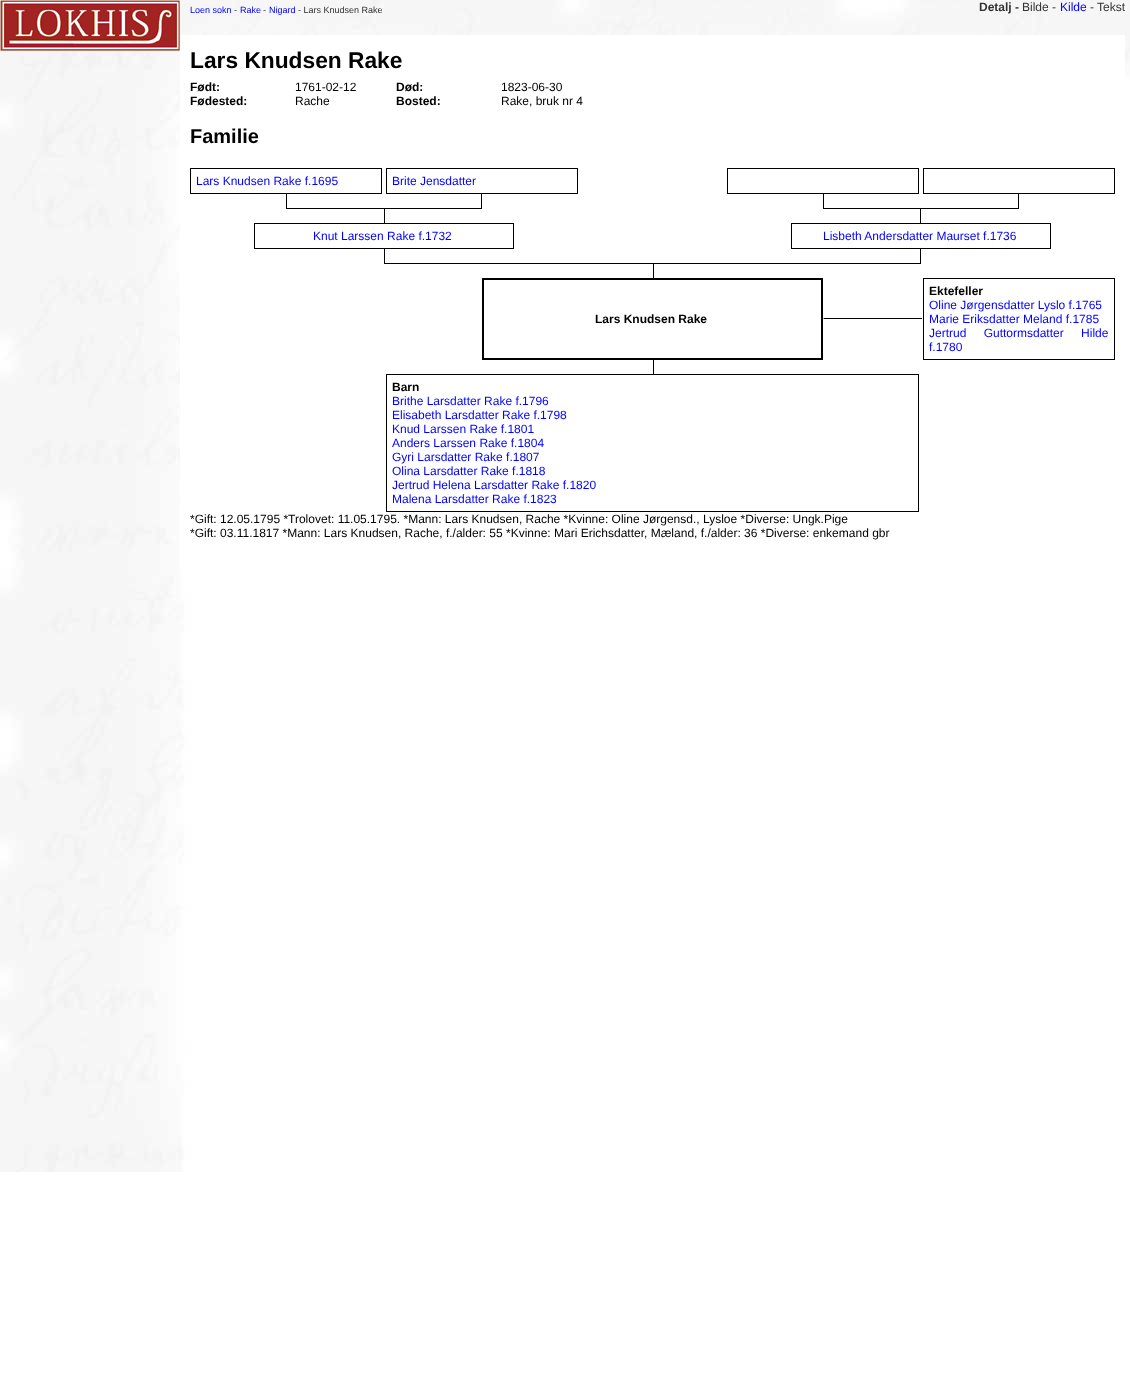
<svg xmlns="http://www.w3.org/2000/svg" width="1130" height="1398" viewBox="0 0 1130 1398">
  <rect width="100%" height="100%" fill="#ffffff"/>
  <image x="0" y="0" width="1130" height="1172" href="img1.png"/>
  <image x="0" y="0" width="180" height="51" href="img2.png"/>
  <text x="190" y="13" font-family="Liberation Sans" font-size="9" fill="#0000ff">Loen sokn</text>
  <text x="234" y="13" font-family="Liberation Sans" font-size="9" fill="#333333">-</text>
  <text x="240" y="13" font-family="Liberation Sans" font-size="9" fill="#0000ff">Rake</text>
  <text x="263" y="13" font-family="Liberation Sans" font-size="9" fill="#333333">-</text>
  <text x="269" y="13" font-family="Liberation Sans" font-size="9" fill="#0000ff">Nigard</text>
  <text x="298" y="13" font-family="Liberation Sans" font-size="9" fill="#333333">- Lars Knudsen Rake</text>
  <text x="979" y="11" font-family="Liberation Sans" font-size="12" font-weight="bold" fill="#333333">Detalj -</text>
  <text x="1022" y="11" font-family="Liberation Sans" font-size="12" fill="#333333">Bilde -</text>
  <text x="1060" y="11" font-family="Liberation Sans" font-size="12" fill="#0000ff">Kilde</text>
  <text x="1090" y="11" font-family="Liberation Sans" font-size="12" fill="#333333">- Tekst</text>
  <rect x="180" y="35" width="945" height="534" fill="#ffffff"/>
  <text x="190" y="68" font-family="Liberation Sans" font-size="22.75" font-weight="bold" fill="#000000">Lars Knudsen Rake</text>
  <text x="190" y="91" font-family="Liberation Sans" font-size="12" font-weight="bold" fill="#000000">Født:</text>
  <text x="295" y="91" font-family="Liberation Sans" font-size="12" fill="#000000">1761-02-12</text>
  <text x="396" y="91" font-family="Liberation Sans" font-size="12" font-weight="bold" fill="#000000">Død:</text>
  <text x="501" y="91" font-family="Liberation Sans" font-size="12" fill="#000000">1823-06-30</text>
  <text x="190" y="105" font-family="Liberation Sans" font-size="12" font-weight="bold" fill="#000000">Fødested:</text>
  <text x="295" y="105" font-family="Liberation Sans" font-size="12" fill="#000000">Rache</text>
  <text x="396" y="105" font-family="Liberation Sans" font-size="12" font-weight="bold" fill="#000000">Bosted:</text>
  <text x="501" y="105" font-family="Liberation Sans" font-size="12" fill="#000000">Rake, bruk nr 4</text>
  <text x="190" y="143" font-family="Liberation Sans" font-size="20" font-weight="bold" fill="#000000">Familie</text>
  <rect x="190.5" y="168.5" width="191" height="25" fill="none" stroke="#000000"/>
  <text x="196" y="185" font-family="Liberation Sans" font-size="12" fill="#0000ff">Lars Knudsen Rake f.1695</text>
  <rect x="386.5" y="168.5" width="191" height="25" fill="none" stroke="#000000"/>
  <text x="392" y="185" font-family="Liberation Sans" font-size="12" fill="#0000ff">Brite Jensdatter</text>
  <rect x="727.5" y="168.5" width="191" height="25" fill="none" stroke="#000000"/>
  <rect x="923.5" y="168.5" width="191" height="25" fill="none" stroke="#000000"/>
  <rect x="481" y="194" width="1" height="15" fill="#000000"/>
  <rect x="286" y="208" width="196" height="1" fill="#000000"/>
  <rect x="286" y="194" width="1" height="15" fill="#000000"/>
  <rect x="1018" y="194" width="1" height="15" fill="#000000"/>
  <rect x="823" y="208" width="196" height="1" fill="#000000"/>
  <rect x="823" y="194" width="1" height="15" fill="#000000"/>
  <rect x="920" y="209" width="1" height="14" fill="#000000"/>
  <rect x="384" y="209" width="1" height="14" fill="#000000"/>
  <rect x="254.5" y="223.5" width="259" height="25" fill="none" stroke="#000000"/>
  <text x="313" y="240" font-family="Liberation Sans" font-size="12" fill="#0000ff">Knut Larssen Rake f.1732</text>
  <rect x="791.5" y="223.5" width="259" height="25" fill="none" stroke="#000000"/>
  <text x="823" y="240" font-family="Liberation Sans" font-size="12" fill="#0000ff">Lisbeth Andersdatter Maurset f.1736</text>
  <rect x="920" y="249" width="1" height="15" fill="#000000"/>
  <rect x="384" y="263" width="537" height="1" fill="#000000"/>
  <rect x="384" y="249" width="1" height="15" fill="#000000"/>
  <rect x="653" y="264" width="1" height="14" fill="#000000"/>
  <rect x="483" y="279" width="339" height="80" fill="none" stroke="#000000" stroke-width="2"/>
  <text x="595" y="323" font-family="Liberation Sans" font-size="12" font-weight="bold" fill="#000000">Lars Knudsen Rake</text>
  <rect x="823" y="318" width="100" height="1" fill="#000000"/>
  <rect x="922" y="318" width="1" height="1" fill="#eeeeee"/>
  <rect x="823" y="318" width="1" height="1" fill="#9f9f9f"/>
  <rect x="923.5" y="278.5" width="191" height="81" fill="none" stroke="#000000"/>
  <text x="929" y="295" font-family="Liberation Sans" font-size="12" font-weight="bold" fill="#000000">Ektefeller</text>
  <text x="929" y="309" font-family="Liberation Sans" font-size="12" fill="#0000ff">Oline Jørgensdatter Lyslo f.1765</text>
  <text x="929" y="323" font-family="Liberation Sans" font-size="12" fill="#0000ff">Marie Eriksdatter Meland f.1785</text>
  <text x="929" y="337" word-spacing="14" font-family="Liberation Sans" font-size="12" fill="#0000ff">Jertrud Guttormsdatter Hilde</text>
  <text x="929" y="351" font-family="Liberation Sans" font-size="12" fill="#0000ff">f.1780</text>
  <rect x="653" y="360" width="1" height="14" fill="#000000"/>
  <rect x="386.5" y="374.5" width="532" height="137" fill="none" stroke="#000000"/>
  <text x="392" y="391" font-family="Liberation Sans" font-size="12" font-weight="bold" fill="#000000">Barn</text>
  <text x="392" y="405" font-family="Liberation Sans" font-size="12" fill="#0000ff">Brithe Larsdatter Rake f.1796</text>
  <text x="392" y="419" font-family="Liberation Sans" font-size="12" fill="#0000ff">Elisabeth Larsdatter Rake f.1798</text>
  <text x="392" y="433" font-family="Liberation Sans" font-size="12" fill="#0000ff">Knud Larssen Rake f.1801</text>
  <text x="392" y="447" font-family="Liberation Sans" font-size="12" fill="#0000ff">Anders Larssen Rake f.1804</text>
  <text x="392" y="461" font-family="Liberation Sans" font-size="12" fill="#0000ff">Gyri Larsdatter Rake f.1807</text>
  <text x="392" y="475" font-family="Liberation Sans" font-size="12" fill="#0000ff">Olina Larsdatter Rake f.1818</text>
  <text x="392" y="489" font-family="Liberation Sans" font-size="12" fill="#0000ff">Jertrud Helena Larsdatter Rake f.1820</text>
  <text x="392" y="503" font-family="Liberation Sans" font-size="12" fill="#0000ff">Malena Larsdatter Rake f.1823</text>
  <text x="190" y="523" font-family="Liberation Sans" font-size="12" fill="#000000">*Gift: 12.05.1795 *Trolovet: 11.05.1795. *Mann: Lars Knudsen, Rache *Kvinne: Oline Jørgensd., Lysloe *Diverse: Ungk.Pige</text>
  <text x="190" y="537" font-family="Liberation Sans" font-size="12" fill="#000000">*Gift: 03.11.1817 *Mann: Lars Knudsen, Rache, f./alder: 55 *Kvinne: Mari Erichsdatter, Mæland, f./alder: 36 *Diverse: enkemand gbr</text>
</svg>
